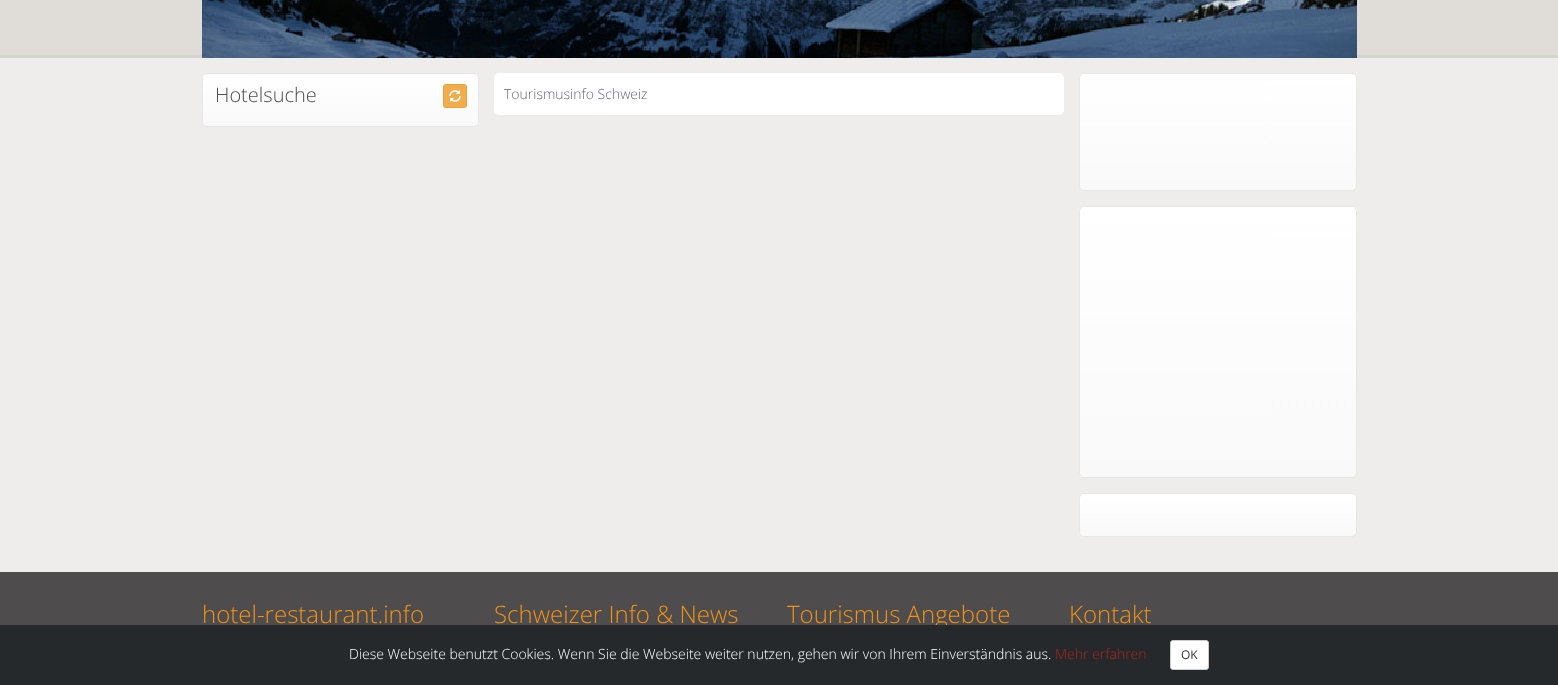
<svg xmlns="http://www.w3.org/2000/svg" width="1558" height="685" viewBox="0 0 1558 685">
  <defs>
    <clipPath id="clip1"><rect x="202" y="73" width="277" height="54" rx="5"/></clipPath>
    <linearGradient id="g1" gradientUnits="userSpaceOnUse" x1="341" y1="74" x2="341" y2="126"><stop offset="0" stop-color="#ffffff"/><stop offset="1" stop-color="#f9f9f9"/></linearGradient>
    <clipPath id="clip2"><rect x="1079" y="73" width="278" height="118" rx="5"/></clipPath>
    <linearGradient id="g2" gradientUnits="userSpaceOnUse" x1="1218" y1="74" x2="1218" y2="190"><stop offset="0" stop-color="#ffffff"/><stop offset="1" stop-color="#f9f9f9"/></linearGradient>
    <clipPath id="clip3"><rect x="1079" y="206" width="278" height="272" rx="5"/></clipPath>
    <linearGradient id="g3" gradientUnits="userSpaceOnUse" x1="1218" y1="207" x2="1218" y2="477"><stop offset="0" stop-color="#ffffff"/><stop offset="1" stop-color="#f9f9f9"/></linearGradient>
    <clipPath id="clip4"><rect x="1079" y="493" width="278" height="44" rx="5"/></clipPath>
    <linearGradient id="g4" gradientUnits="userSpaceOnUse" x1="1218" y1="494" x2="1218" y2="536"><stop offset="0" stop-color="#ffffff"/><stop offset="1" stop-color="#f9f9f9"/></linearGradient>
  </defs>
  <rect width="100%" height="100%" fill="#eeedeb"/>
  <rect x="0" y="0" width="1558" height="55" fill="#e0ddd8"/>
  <rect x="0" y="55" width="1558" height="3" fill="#d5d4d0"/>
  <image x="202" y="0" width="1155" height="58" href="img1.png"/>
  <g clip-path="url(#clip1)">
    <rect x="202" y="74" width="277" height="52" fill="url(#g1)"/>
  </g>
  <rect x="202.5" y="73.5" width="276" height="53" rx="4.5" fill="none" stroke="#e7e7e7"/>
  <text x="215" y="102" font-family="Open Sans" font-size="20" font-weight="300" fill="#4e4e4e">Hotelsuche</text>
  <rect x="443.5" y="84.5" width="23" height="23" rx="2.5" fill="#f0ad4e" stroke="#eea236"/>
  <image x="449" y="90" width="12" height="12" href="img2.png"/>
  <rect x="494" y="73" width="570" height="42" rx="5" fill="#ffffff"/>
  <text x="504" y="99" font-family="Open Sans" font-size="14" font-weight="300" fill="#66667d">Tourismusinfo Schweiz</text>
  <rect x="0" y="572" width="1558" height="53" fill="#4e4c4c"/>
  <text x="787" y="623" font-family="Open Sans" font-size="24" font-weight="300" fill="#f29216">Tourismus Angebote</text>
  <rect x="0" y="625" width="1558" height="60" fill="#25292c"/>
  <text x="349" y="659" font-family="Open Sans" font-size="14" font-weight="300" fill="#ffffff">Diese Webseite benutzt Cookies. Wenn Sie die Webseite weiter nutzen, gehen wir von Ihrem Einverständnis aus.</text>
  <text x="1055" y="659" font-family="Open Sans" font-size="14" font-weight="300" fill="#b02517">Mehr erfahren</text>
  <rect x="1170.5" y="640.5" width="38" height="29" rx="2.5" fill="#ffffff" stroke="#cccccc"/>
  <text x="1181" y="659" font-family="Open Sans" font-size="12" fill="#333333">OK</text>
  <g clip-path="url(#clip2)">
    <rect x="1079" y="74" width="278" height="116" fill="url(#g2)"/>
  </g>
  <rect x="1079.5" y="73.5" width="277" height="117" rx="4.5" fill="none" stroke="#e7e7e7"/>
  <g clip-path="url(#clip3)">
    <rect x="1079" y="207" width="278" height="270" fill="url(#g3)"/>
  </g>
  <rect x="1079.5" y="206.5" width="277" height="271" rx="4.5" fill="none" stroke="#e7e7e7"/>
  <g clip-path="url(#clip4)">
    <rect x="1079" y="494" width="278" height="42" fill="url(#g4)"/>
  </g>
  <rect x="1079.5" y="493.5" width="277" height="43" rx="4.5" fill="none" stroke="#e7e7e7"/>
  <text x="202" y="623" font-family="Open Sans" font-size="24" font-weight="300" fill="#f29216">hotel-restaurant.info</text>
  <text x="494" y="623" font-family="Open Sans" font-size="24" font-weight="300" fill="#f29216">Schweizer Info &amp; News</text>
  <text x="1069" y="623" font-family="Open Sans" font-size="24" font-weight="300" fill="#f29216">Kontakt</text>
</svg>
